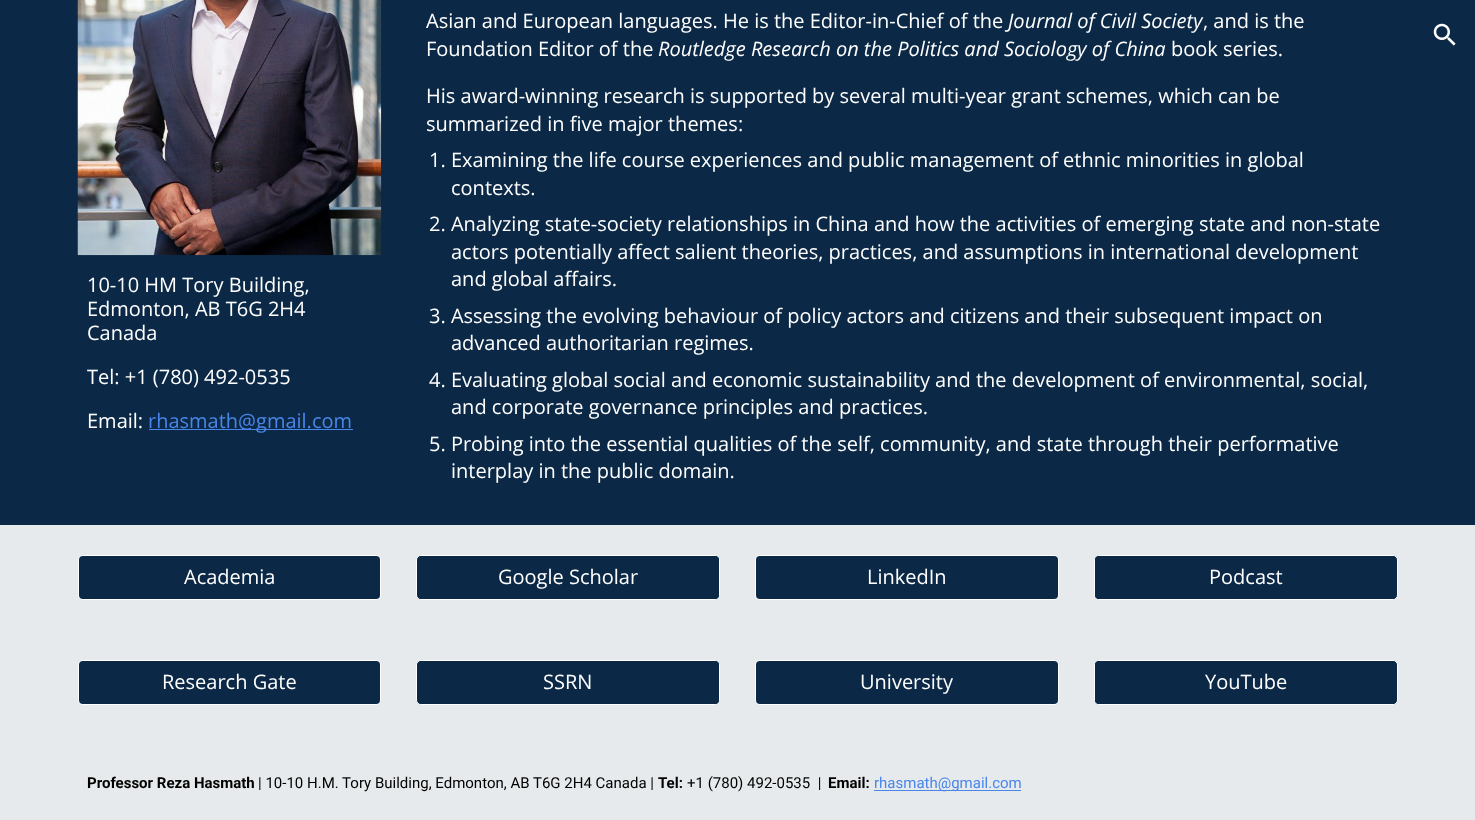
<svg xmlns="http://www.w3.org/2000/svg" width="1475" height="820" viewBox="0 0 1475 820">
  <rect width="100%" height="100%" fill="#0b2946"/>
  <image x="77" y="0" width="305" height="256" href="img1.png"/>
  <text x="87" y="292" font-family="Open Sans" font-size="20" fill="#ffffff">10-10 HM Tory Building,</text>
  <text x="87" y="316" font-family="Open Sans" font-size="20" fill="#ffffff">Edmonton, AB T6G 2H4</text>
  <text x="87" y="340" font-family="Open Sans" font-size="20" fill="#ffffff">Canada</text>
  <text x="87" y="384" font-family="Open Sans" font-size="20" fill="#ffffff">Tel: +1 (780) 492-0535</text>
  <text x="87" y="428" font-family="Open Sans" font-size="20" fill="#ffffff">Email:</text>
  <rect x="149" y="429" width="204" height="1" fill="#4a86e8"/>
  <text x="148" y="428" font-family="Open Sans" font-size="20" fill="#4a86e8">rhasmath@gmail.com</text>
  <text x="426" y="28" font-family="Open Sans" font-size="20" fill="#ffffff">Asian and European languages. He is the Editor-in-Chief of the</text>
  <text x="1008" y="28" font-family="Open Sans" font-size="20" font-style="italic" fill="#ffffff">Journal of Civil Society</text>
  <text x="1203" y="28" font-family="Open Sans" font-size="20" fill="#ffffff">, and is the</text>
  <text x="426" y="56" font-family="Open Sans" font-size="20" fill="#ffffff">Foundation Editor of the</text>
  <text x="658" y="56" font-family="Open Sans" font-size="20" font-style="italic" fill="#ffffff">Routledge Research on the Politics and Sociology of China</text>
  <text x="1171" y="56" font-family="Open Sans" font-size="20" fill="#ffffff">book series.</text>
  <text x="426" y="103" font-family="Open Sans" font-size="20" fill="#ffffff">His award-winning research is supported by several multi-year grant schemes, which can be</text>
  <text x="426" y="131" font-family="Open Sans" font-size="20" fill="#ffffff">summarized in five major themes:</text>
  <text x="429" y="167" font-family="Open Sans" font-size="20" fill="#ffffff">1. Examining the life course experiences and public management of ethnic minorities in global</text>
  <text x="451" y="195" font-family="Open Sans" font-size="20" fill="#ffffff">contexts.</text>
  <text x="429" y="231" font-family="Open Sans" font-size="20" fill="#ffffff">2. Analyzing state-society relationships in China and how the activities of emerging state and non-state</text>
  <text x="451" y="259" font-family="Open Sans" font-size="20" fill="#ffffff">actors potentially affect salient theories, practices, and assumptions in international development</text>
  <text x="451" y="286" font-family="Open Sans" font-size="20" fill="#ffffff">and global affairs.</text>
  <text x="429" y="323" font-family="Open Sans" font-size="20" fill="#ffffff">3. Assessing the evolving behaviour of policy actors and citizens and their subsequent impact on</text>
  <text x="451" y="350" font-family="Open Sans" font-size="20" fill="#ffffff">advanced authoritarian regimes.</text>
  <text x="429" y="387" font-family="Open Sans" font-size="20" fill="#ffffff">4. Evaluating global social and economic sustainability and the development of environmental, social,</text>
  <text x="451" y="414" font-family="Open Sans" font-size="20" fill="#ffffff">and corporate governance principles and practices.</text>
  <text x="429" y="451" font-family="Open Sans" font-size="20" fill="#ffffff">5. Probing into the essential qualities of the self, community, and state through their performative</text>
  <text x="451" y="478" font-family="Open Sans" font-size="20" fill="#ffffff">interplay in the public domain.</text>
  <rect x="0" y="525" width="1475" height="295" fill="#e7eaec"/>
  <rect x="78.5" y="555.5" width="302" height="44" rx="4.5" fill="none" stroke="#ffffff"/>
  <rect x="79" y="556" width="301" height="43" rx="4" fill="#0b2946"/>
  <text x="184" y="584" font-family="Open Sans" font-size="20" fill="#ffffff">Academia</text>
  <rect x="416.5" y="555.5" width="303" height="44" rx="4.5" fill="#0b2946" stroke="#ffffff"/>
  <rect x="418" y="556" width="301" height="43" rx="4" fill="#0b2946"/>
  <text x="498" y="584" font-family="Open Sans" font-size="20" fill="#ffffff">Google Scholar</text>
  <rect x="755.5" y="555.5" width="303" height="44" rx="4.5" fill="none" stroke="#ffffff"/>
  <rect x="756" y="556" width="302" height="43" rx="4" fill="#0b2946"/>
  <text x="867" y="584" font-family="Open Sans" font-size="20" fill="#ffffff">LinkedIn</text>
  <rect x="1094.5" y="555.5" width="303" height="44" rx="4.5" fill="#0b2946" stroke="#ffffff"/>
  <rect x="1095" y="556" width="301" height="43" rx="4" fill="#0b2946"/>
  <text x="1209" y="584" font-family="Open Sans" font-size="20" fill="#ffffff">Podcast</text>
  <rect x="78.5" y="660.5" width="302" height="44" rx="4.5" fill="none" stroke="#ffffff"/>
  <rect x="79" y="661" width="301" height="43" rx="4" fill="#0b2946"/>
  <text x="162" y="689" font-family="Open Sans" font-size="20" fill="#ffffff">Research Gate</text>
  <rect x="416.5" y="660.5" width="303" height="44" rx="4.5" fill="#0b2946" stroke="#ffffff"/>
  <rect x="418" y="661" width="301" height="43" rx="4" fill="#0b2946"/>
  <text x="543" y="689" font-family="Open Sans" font-size="20" fill="#ffffff">SSRN</text>
  <rect x="755.5" y="660.5" width="303" height="44" rx="4.5" fill="none" stroke="#ffffff"/>
  <rect x="756" y="661" width="302" height="43" rx="4" fill="#0b2946"/>
  <text x="860" y="689" font-family="Open Sans" font-size="20" fill="#ffffff">University</text>
  <rect x="1094.5" y="660.5" width="303" height="44" rx="4.5" fill="#0b2946" stroke="#ffffff"/>
  <rect x="1095" y="661" width="301" height="43" rx="4" fill="#0b2946"/>
  <text x="1205" y="689" font-family="Open Sans" font-size="20" fill="#ffffff">YouTube</text>
  <image x="1433" y="23" width="23" height="23" href="img2.png"/>
  <text x="87" y="788" font-family="Roboto" font-size="15" font-weight="bold" fill="#000000">Professor Reza Hasmath</text>
  <text x="258" y="788" font-family="Roboto" font-size="15" fill="#000000">| 10-10 H.M. Tory Building, Edmonton, AB T6G 2H4 Canada |</text>
  <text x="658" y="788" font-family="Roboto" font-size="15" font-weight="bold" fill="#000000">Tel:</text>
  <text x="687" y="788" font-family="Roboto" font-size="15" fill="#000000" xml:space="preserve">+1 (780) 492-0535  |</text>
  <text x="828" y="788" font-family="Roboto" font-size="15" font-weight="bold" fill="#000000">Email:</text>
  <rect x="874" y="790" width="147" height="1" fill="#4a86e8"/>
  <text x="874" y="788" font-family="Roboto" font-size="15" fill="#4a86e8">rhasmath@gmail.com</text>
</svg>
